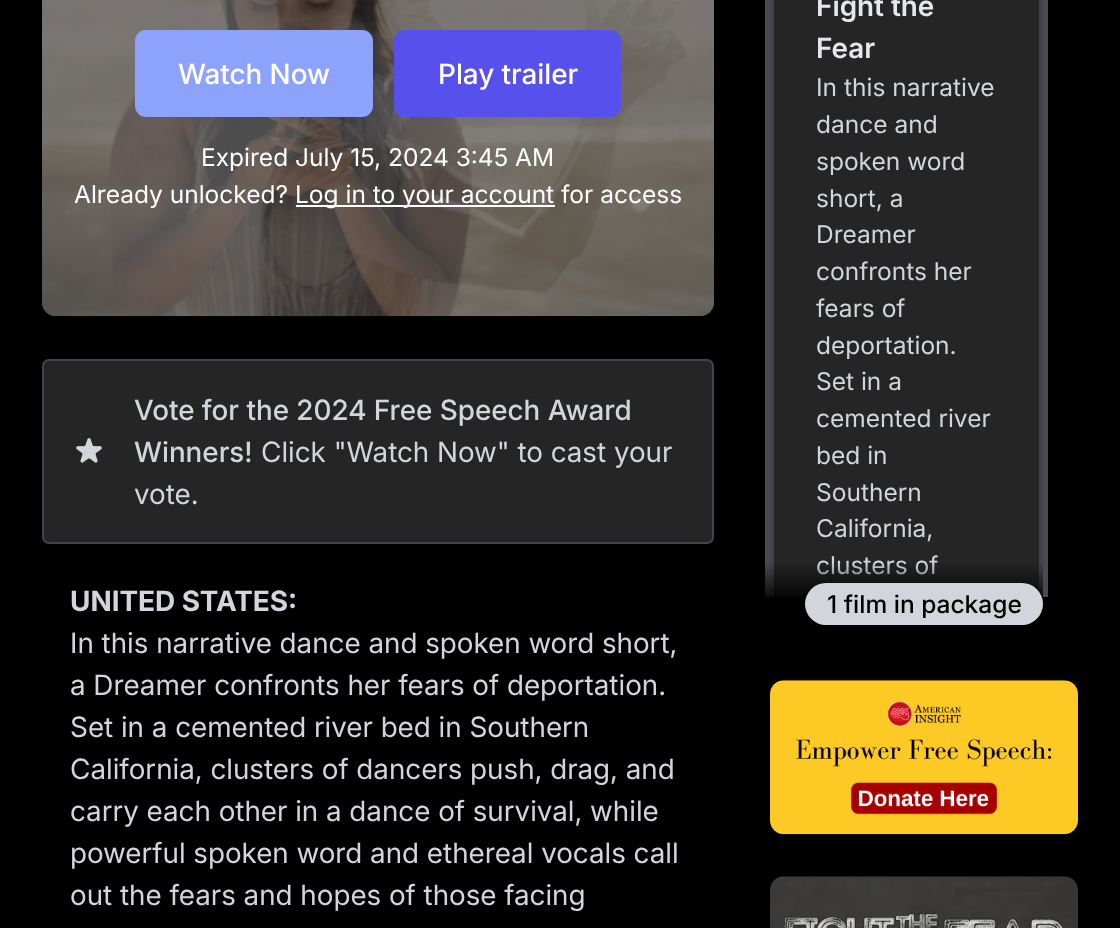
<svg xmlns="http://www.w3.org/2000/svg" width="1120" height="928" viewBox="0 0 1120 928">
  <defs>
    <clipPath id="clip1"><rect x="756" y="0" width="322" height="597"/></clipPath>
    <linearGradient id="g1" gradientUnits="userSpaceOnUse" x1="898" y1="562" x2="898" y2="604"><stop offset="0" stop-color="#000000" stop-opacity="0"/><stop offset="1" stop-color="#000000"/></linearGradient>
  </defs>
  <rect width="100%" height="100%" fill="#000000"/>
  <image x="42" y="0" width="672" height="317" href="img1.png"/>
  <rect x="42" y="-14" width="672" height="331" rx="14" fill="#000000" fill-opacity="0.5"/>
  <rect x="135" y="30" width="238" height="87" rx="11" fill="#8da2fb"/>
  <text x="178" y="84" font-family="Inter" font-size="28" font-weight="500" fill="#ffffff">Watch Now</text>
  <rect x="394" y="30" width="227" height="87" rx="11" fill="#5850ec"/>
  <text x="438" y="84" font-family="Inter" font-size="28" font-weight="500" fill="#ffffff">Play trailer</text>
  <text x="201" y="166" font-family="'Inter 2'" font-size="24.5" fill="#ffffff">Expired July 15, 2024 3:45 AM</text>
  <text x="74" y="203" font-family="'Inter 2'" font-size="24.5" fill="#ffffff">Already unlocked?</text>
  <rect x="296" y="205" width="259" height="2" fill="#ffffff"/>
  <text x="295" y="203" font-family="'Inter 2'" font-size="24.5" fill="#ffffff">Log in to your account for access</text>
  <rect x="43" y="360" width="670" height="183" rx="6" fill="#252525" stroke="#43434f" stroke-width="2"/>
  <image x="76" y="438" width="26" height="25" href="img2.png"/>
  <text x="134" y="420" font-family="Inter" font-size="28" font-weight="500" fill="#d2d6dc">Vote for the 2024 Free Speech Award</text>
  <text x="134" y="462" font-family="Inter" font-size="28" font-weight="500" fill="#d2d6dc">Winners!</text>
  <text x="261" y="462" font-family="Inter" font-size="28" fill="#d2d6dc">Click "Watch Now" to cast your</text>
  <text x="134" y="504" font-family="Inter" font-size="28" fill="#d2d6dc">vote.</text>
  <text x="70" y="611" font-family="Inter" font-size="28" font-weight="bold" fill="#d2d6dc">UNITED STATES:</text>
  <text x="70" y="653" font-family="Inter" font-size="28" fill="#d2d6dc">In this narrative dance and spoken word short,</text>
  <text x="70" y="695" font-family="Inter" font-size="28" fill="#d2d6dc">a Dreamer confronts her fears of deportation.</text>
  <text x="70" y="737" font-family="Inter" font-size="28" fill="#d2d6dc">Set in a cemented river bed in Southern</text>
  <text x="70" y="779" font-family="Inter" font-size="28" fill="#d2d6dc">California, clusters of dancers push, drag, and</text>
  <text x="70" y="821" font-family="Inter" font-size="28" fill="#d2d6dc">carry each other in a dance of survival, while</text>
  <text x="70" y="863" font-family="Inter" font-size="28" fill="#d2d6dc">powerful spoken word and ethereal vocals call</text>
  <text x="70" y="905" font-family="Inter" font-size="28" fill="#d2d6dc">out the fears and hopes of those facing</text>
  <image x="770" y="680" width="308" height="155" href="img3.png"/>
  <image x="770" y="876" width="308" height="52" href="img4.png"/>
  <g clip-path="url(#clip1)">
    <rect x="767.5" y="-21.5" width="278" height="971" rx="16.5" fill="none" stroke="#484b50" stroke-width="5"/>
  </g>
  <rect x="774" y="0" width="265" height="597" fill="#252525"/>
  <g clip-path="url(#clip1)">
    <rect x="772" y="-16" width="269" height="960" rx="12" fill="none" stroke="#43434f" stroke-width="4"/>
  </g>
  <text x="816" y="16" font-family="Inter" font-size="28" font-weight="600" fill="#e5e7eb">Fight the</text>
  <text x="816" y="58" font-family="Inter" font-size="28" font-weight="600" fill="#e5e7eb">Fear</text>
  <text x="816" y="96" font-family="'Inter 2'" font-size="24.5" fill="#d2d6dc">In this narrative</text>
  <text x="816" y="133" font-family="'Inter 2'" font-size="24.5" fill="#d2d6dc">dance and</text>
  <text x="816" y="170" font-family="'Inter 2'" font-size="24.5" fill="#d2d6dc">spoken word</text>
  <text x="816" y="207" font-family="'Inter 2'" font-size="24.5" fill="#d2d6dc">short, a</text>
  <text x="816" y="243" font-family="'Inter 2'" font-size="24.5" fill="#d2d6dc">Dreamer</text>
  <text x="816" y="280" font-family="'Inter 2'" font-size="24.5" fill="#d2d6dc">confronts her</text>
  <text x="816" y="317" font-family="'Inter 2'" font-size="24.5" fill="#d2d6dc">fears of</text>
  <text x="816" y="354" font-family="'Inter 2'" font-size="24.5" fill="#d2d6dc">deportation.</text>
  <text x="816" y="390" font-family="'Inter 2'" font-size="24.5" fill="#d2d6dc">Set in a</text>
  <text x="816" y="427" font-family="'Inter 2'" font-size="24.5" fill="#d2d6dc">cemented river</text>
  <text x="816" y="464" font-family="'Inter 2'" font-size="24.5" fill="#d2d6dc">bed in</text>
  <text x="816" y="501" font-family="'Inter 2'" font-size="24.5" fill="#d2d6dc">Southern</text>
  <text x="816" y="537" font-family="'Inter 2'" font-size="24.5" fill="#d2d6dc">California,</text>
  <text x="816" y="574" font-family="'Inter 2'" font-size="24.5" fill="#d2d6dc">clusters of</text>
  <rect x="765" y="563" width="278" height="34" fill="url(#g1)"/>
  <rect x="805" y="583" width="238" height="42" rx="21" fill="#d2d6dc"/>
  <text x="827" y="613" font-family="'Inter 2'" font-size="24.5" font-weight="500" fill="#000000">1 film in package</text>
</svg>
